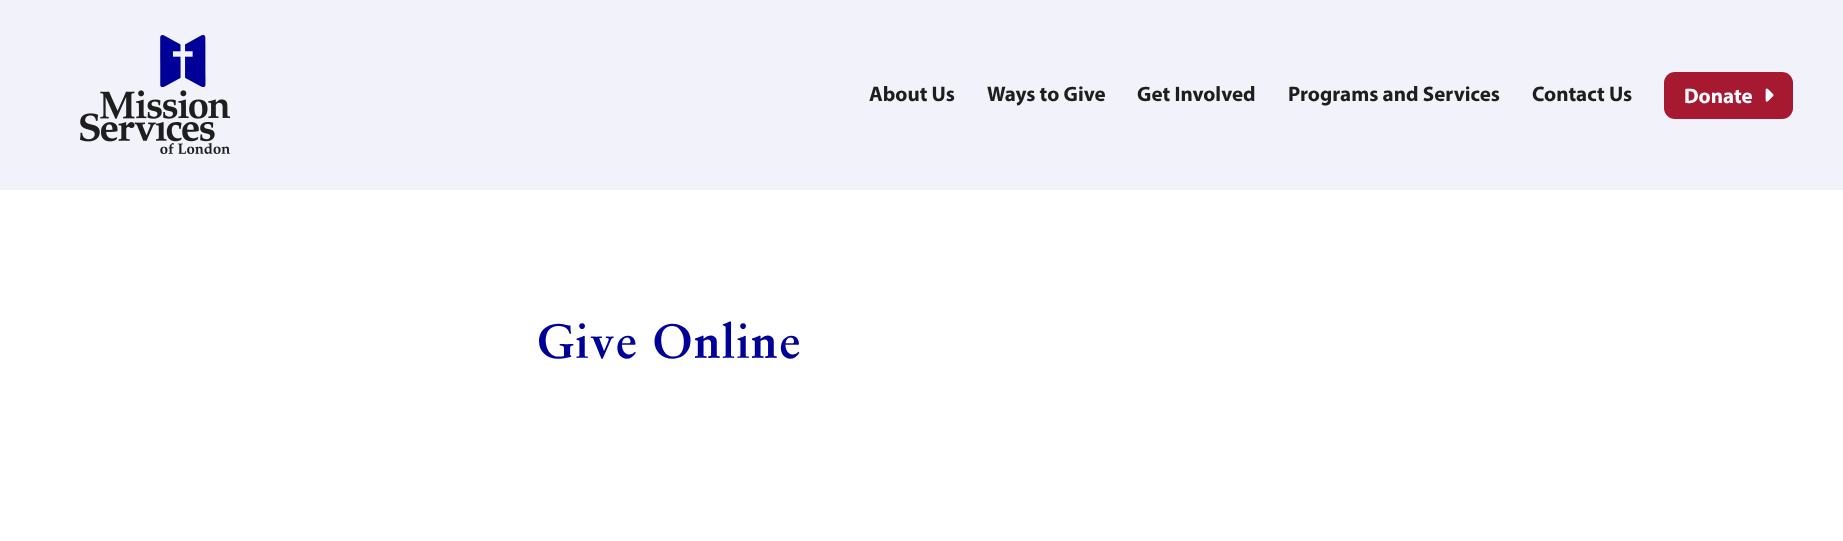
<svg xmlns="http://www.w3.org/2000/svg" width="1843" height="541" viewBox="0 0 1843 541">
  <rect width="100%" height="100%" fill="#ffffff"/>
  <rect x="0" y="0" width="1843" height="190" fill="#f2f2fa"/>
  <image x="80" y="35" width="150" height="119" href="img1.png"/>
  <text x="869" y="101" font-family="Myriad" font-size="21" font-weight="bold" fill="#1e1e1e">About Us</text>
  <text x="987" y="101" font-family="Myriad" font-size="21" font-weight="bold" fill="#1e1e1e">Ways to Give</text>
  <text x="1137" y="101" font-family="Myriad" font-size="21" font-weight="bold" fill="#1e1e1e">Get Involved</text>
  <text x="1288" y="101" font-family="Myriad" font-size="21" font-weight="bold" fill="#1e1e1e">Programs and Services</text>
  <text x="1532" y="101" font-family="Myriad" font-size="21" font-weight="bold" fill="#1e1e1e">Contact Us</text>
  <rect x="1664" y="72" width="129" height="47" rx="11" fill="#a71931"/>
  <text x="1684" y="103" font-family="Myriad" font-size="21" font-weight="bold" fill="#ffffff">Donate</text>
  <image x="1765" y="88" width="9" height="14" href="img2.png"/>
  <text x="537" y="358" font-family="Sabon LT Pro" font-size="48" font-weight="bold" letter-spacing="1.25" fill="#000099">Give Online</text>
</svg>
